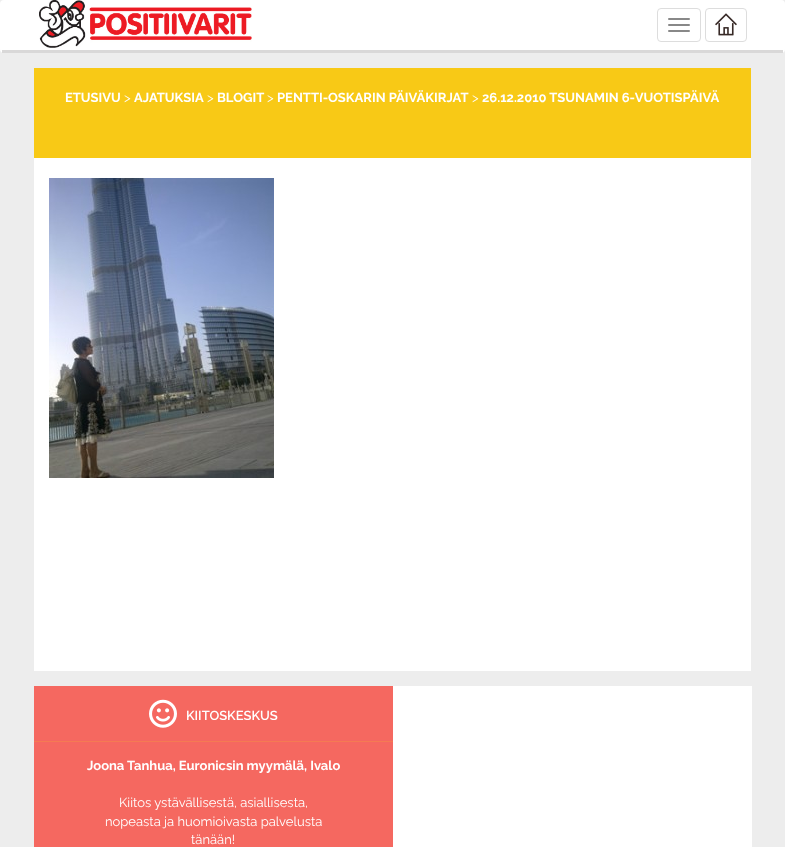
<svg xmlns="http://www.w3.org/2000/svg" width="785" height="847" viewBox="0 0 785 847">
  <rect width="100%" height="100%" fill="#ededed"/>
  <rect x="0" y="0" width="785" height="53" rx="4" fill="#ffffff"/>
  <rect x="2" y="50" width="781" height="3" fill="#d9d8d8"/>
  <image x="39" y="0" width="213" height="48" href="img1.png"/>
  <rect x="657.5" y="8.5" width="43" height="33" rx="3.5" fill="none" stroke="#dddddd"/>
  <rect x="668" y="18" width="22" height="2" rx="1" fill="#888888"/>
  <rect x="668" y="24" width="22" height="2" rx="1" fill="#888888"/>
  <rect x="668" y="30" width="22" height="2" rx="1" fill="#888888"/>
  <rect x="705.5" y="8.5" width="41" height="33" rx="3.5" fill="none" stroke="#dddddd"/>
  <image x="715" y="13" width="22" height="23" href="img2.png"/>
  <rect x="34" y="68" width="717" height="90" fill="#f8c916"/>
  <text x="65" y="102" font-family="Raleway" font-size="13" font-weight="bold" fill="#ffffff">ETUSIVU</text>
  <text x="124" y="102" font-family="Raleway" font-size="13" fill="#ffffff">&gt;</text>
  <text x="134" y="102" font-family="Raleway" font-size="13" font-weight="bold" fill="#ffffff">AJATUKSIA</text>
  <text x="207" y="102" font-family="Raleway" font-size="13" fill="#ffffff">&gt;</text>
  <text x="217" y="102" font-family="Raleway" font-size="13" font-weight="bold" fill="#ffffff">BLOGIT</text>
  <text x="267" y="102" font-family="Raleway" font-size="13" fill="#ffffff">&gt;</text>
  <text x="277" y="102" font-family="Raleway" font-size="13" font-weight="bold" fill="#ffffff">PENTTI-OSKARIN PÄIVÄKIRJAT</text>
  <text x="472" y="102" font-family="Raleway" font-size="13" fill="#ffffff">&gt;</text>
  <text x="482" y="102" font-family="Raleway" font-size="13" font-weight="bold" fill="#ffffff">26.12.2010 TSUNAMIN 6-VUOTISPÄIVÄ</text>
  <rect x="34" y="158" width="717" height="513" fill="#ffffff"/>
  <image x="49" y="178" width="225" height="300" href="img3.png"/>
  <rect x="34" y="686" width="359" height="161" fill="#f56860"/>
  <rect x="34" y="741" width="360" height="1" fill="#f57a53"/>
  <image x="149" y="699" width="28" height="29" href="img4.png"/>
  <text x="186" y="720" font-family="Raleway" font-size="13" font-weight="600" fill="#ffffff">KIITOSKESKUS</text>
  <text x="87" y="770" font-family="Raleway" font-size="13" font-weight="bold" fill="#ffffff">Joona Tanhua, Euronicsin myymälä, Ivalo</text>
  <text x="119" y="807" font-family="Raleway" font-size="13" fill="#ffffff">Kiitos ystävällisestä, asiallisesta,</text>
  <text x="105" y="826" font-family="Raleway" font-size="13" fill="#ffffff">nopeasta ja huomioivasta palvelusta</text>
  <text x="191" y="844" font-family="Raleway" font-size="13" fill="#ffffff">tänään!</text>
  <rect x="393" y="686" width="359" height="161" fill="#ffffff"/>
</svg>
